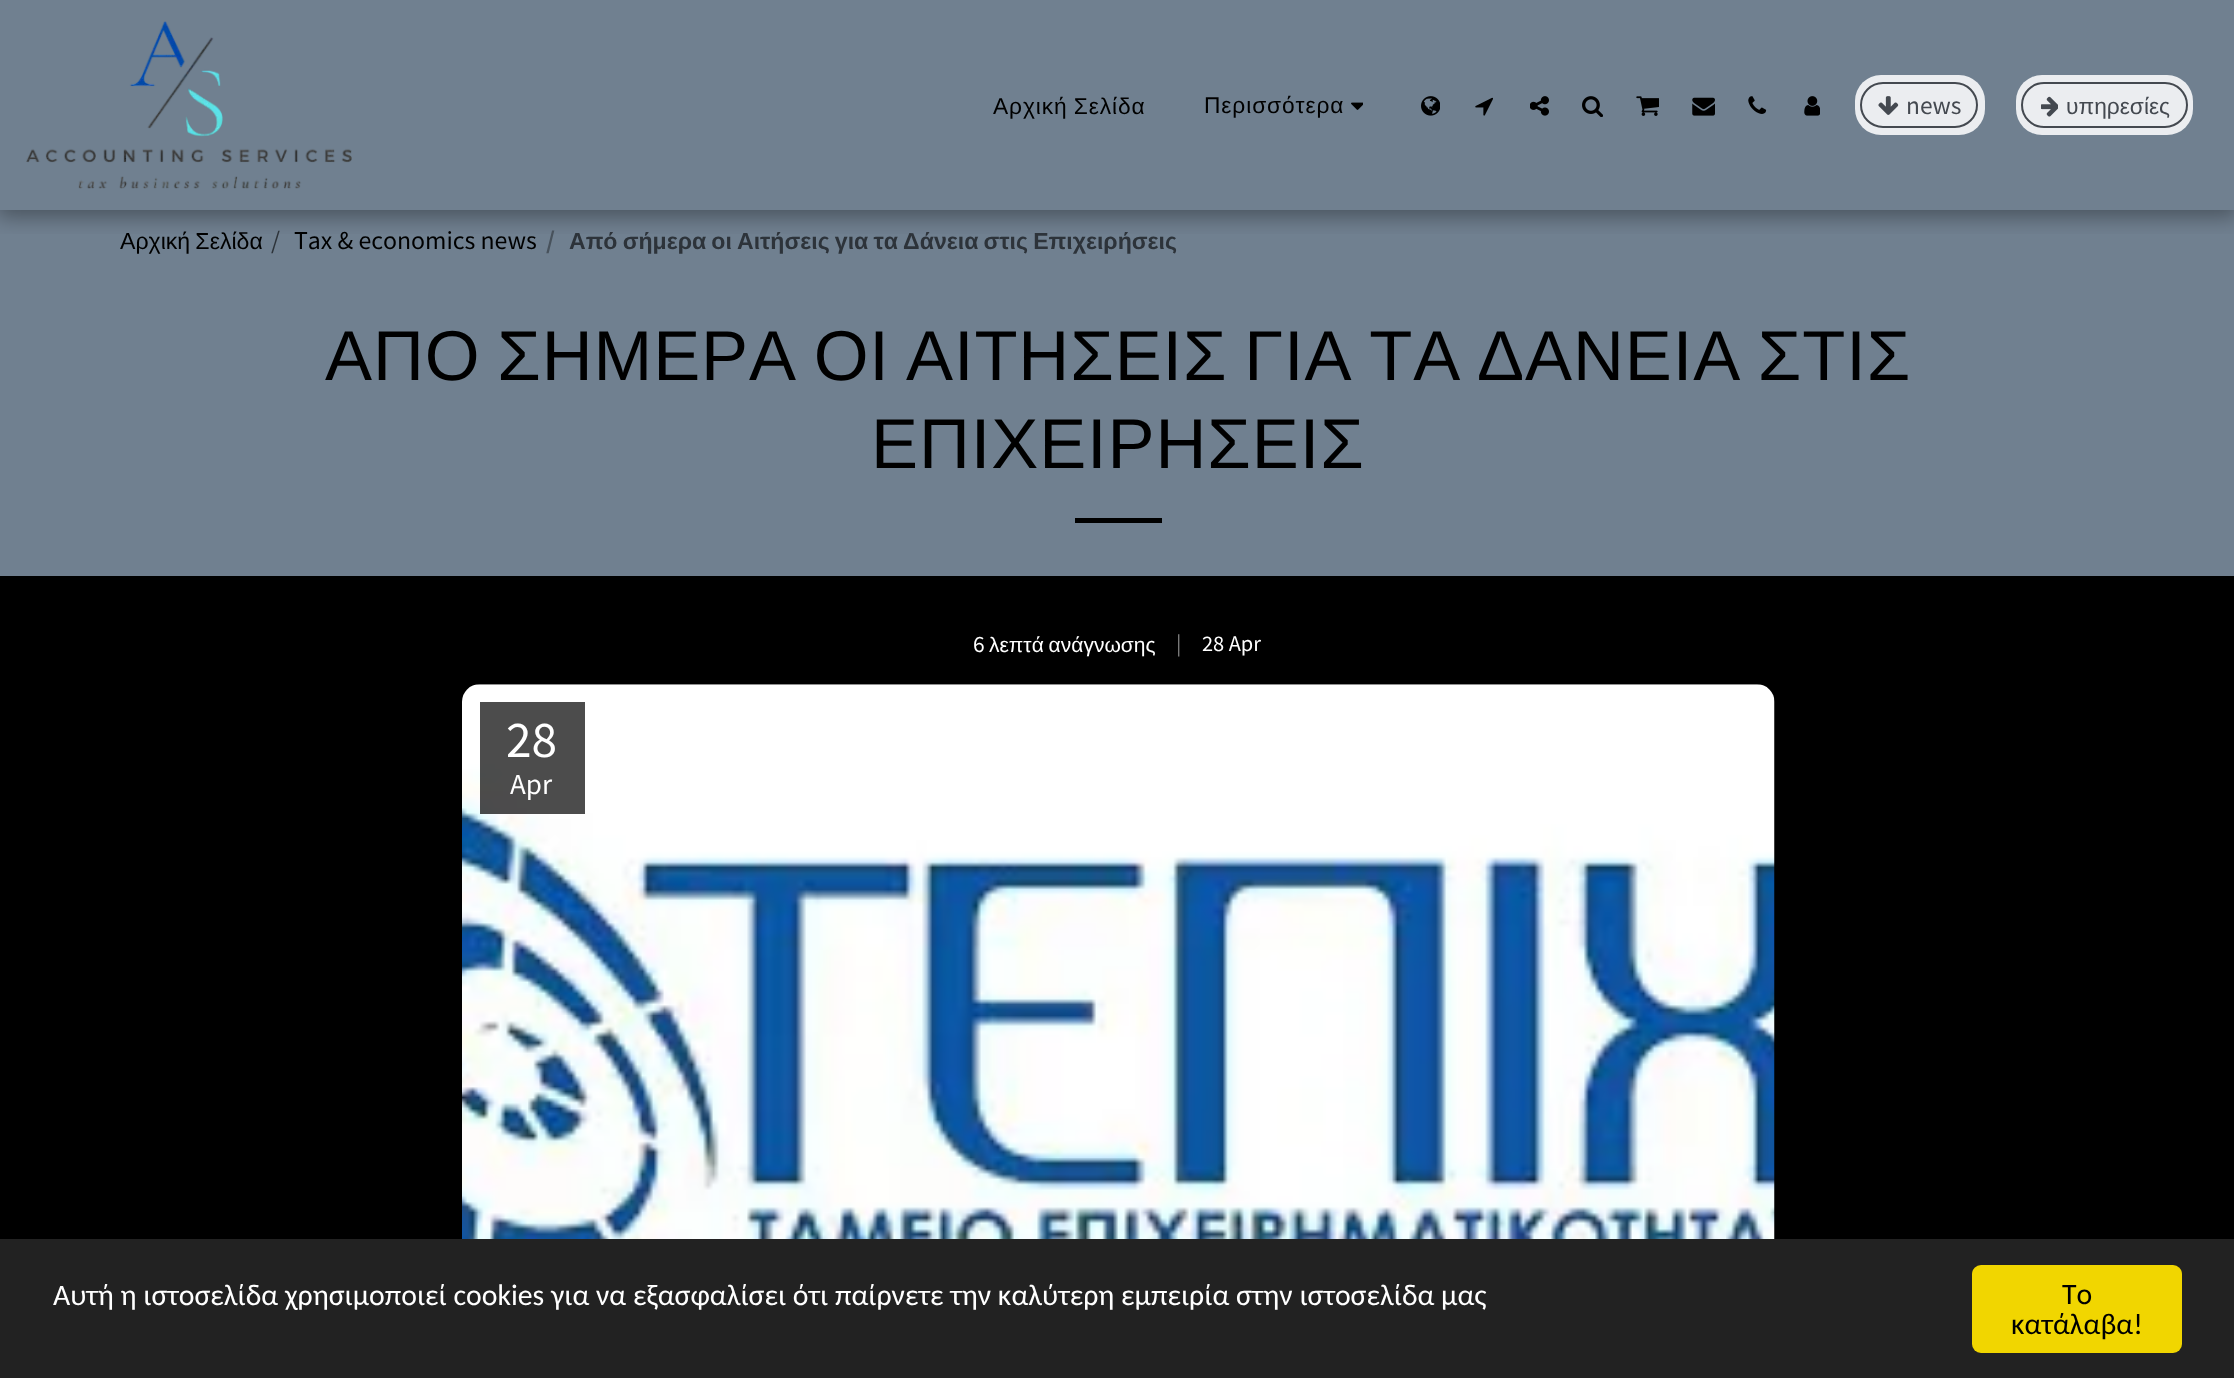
<svg xmlns="http://www.w3.org/2000/svg" width="2234" height="1378" viewBox="0 0 2234 1378">
  <style>*{font-kerning:none!important;font-variant-ligatures:none!important}</style>
  <defs>
    <clipPath id="clip1"><rect x="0" y="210" width="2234" height="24"/></clipPath>
    <filter id="blur1" x="-50%" y="-200%" width="200%" height="500%"><feGaussianBlur stdDeviation="10.5"/></filter>
  </defs>
  <rect width="100%" height="100%" fill="#708090"/>
  <g clip-path="url(#clip1)">
    <rect x="-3" y="0" width="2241" height="217" fill="#000000" fill-opacity="0.35" filter="url(#blur1)"/>
  </g>
  <image x="26" y="21" width="326" height="168" href="img1.png"/>
  <text x="993" y="114" word-spacing="-1" font-family="Liberation Sans" font-size="22.75" letter-spacing="0.9" fill="#000000">Αρχική Σελίδα</text>
  <text x="1204" y="113" font-family="Liberation Sans" font-size="22.75" letter-spacing="0.9" fill="#000000">Περισσότερα</text>
  <image x="1351" y="102" width="12" height="8" href="img2.png"/>
  <image x="1421" y="96" width="19" height="20" href="img3.png"/>
  <image x="1475" y="97" width="18" height="19" href="img4.png"/>
  <image x="1530" y="96" width="19" height="20" href="img5.png"/>
  <image x="1582" y="96" width="21" height="21" href="img6.png"/>
  <image x="1636" y="96" width="23" height="20" href="img7.png"/>
  <image x="1692" y="97" width="23" height="19" href="img8.png"/>
  <image x="1748" y="96" width="19" height="18" href="img9.png"/>
  <image x="1804" y="96" width="16" height="20" href="img10.png"/>
  <rect x="1855" y="75" width="130" height="60" rx="26" fill="#ebedf0"/>
  <rect x="1861" y="83" width="116" height="44" rx="22" fill="none" stroke="#444950" stroke-width="2"/>
  <image x="1878" y="96" width="21" height="19" href="img11.png"/>
  <text x="1906" y="114" font-family="Noto Sans JP" font-size="22.75" fill="#444950">news</text>
  <rect x="2016" y="75" width="177" height="60" rx="26" fill="#ebedf0"/>
  <rect x="2022" y="83" width="165" height="44" rx="22" fill="none" stroke="#444950" stroke-width="2"/>
  <image x="2041" y="96" width="17" height="21" href="img12.png"/>
  <text x="2066" y="114" font-family="Liberation Sans" font-size="22.75" fill="#444950">υπηρεσίες</text>
  <rect x="0" y="576" width="2234" height="663" fill="#000000"/>
  <text x="120" y="249" word-spacing="-1.25" font-family="Liberation Sans" font-size="23.1" fill="#000000">Αρχική Σελίδα</text>
  <text x="271" y="249" font-family="Noto Sans JP" font-size="23.1" fill="#2d333a">/</text>
  <text x="294" y="249" font-family="Noto Sans JP" font-size="23.1" fill="#000000">Tax &amp; economics news</text>
  <text x="546" y="249" font-family="Noto Sans JP" font-size="23.1" font-weight="bold" fill="#48525c">/</text>
  <text x="569" y="249" word-spacing="-1.25" font-family="Liberation Sans" font-size="23.1" font-weight="bold" fill="#2d333a">Από σήμερα οι Αιτήσεις για τα Δάνεια στις Επιχειρήσεις</text>
  <text x="325" y="380" word-spacing="-3.75" font-family="Liberation Sans" font-size="70.5" letter-spacing="0.9" fill="#000000">ΑΠΟ ΣΗΜΕΡΑ ΟΙ</text>
  <text x="906" y="380" word-spacing="-3.75" font-family="Liberation Sans" font-size="70.5" letter-spacing="0.9" fill="#000000">ΑΙΤΗΣΕΙΣ ΓΙΑ ΤΑ</text>
  <text x="1477" y="380" word-spacing="-3.75" font-family="Liberation Sans" font-size="70.5" letter-spacing="0.9" fill="#000000">ΔΑΝΕΙΑ ΣΤΙΣ</text>
  <text x="871" y="468" font-family="Liberation Sans" font-size="70.5" letter-spacing="0.9" fill="#000000">ΕΠΙΧΕΙΡΗΣΕΙΣ</text>
  <rect x="1075" y="518" width="87" height="5" fill="#000000"/>
  <text x="973" y="652" font-family="Noto Sans JP" font-size="21" fill="#ffffff">6</text>
  <text x="989" y="652" word-spacing="-1" font-family="Liberation Sans" font-size="21" fill="#ffffff">λεπτά ανάγνωσης</text>
  <text x="1176" y="651" font-family="Noto Sans JP" font-size="20" fill="#808080">|</text>
  <text x="1202" y="651" font-family="Noto Sans JP" font-size="20" fill="#ffffff">28 Apr</text>
  <image x="462" y="684" width="1313" height="555" href="img13.png"/>
  <rect x="480" y="702" width="105" height="112" fill="#000000" fill-opacity="0.7"/>
  <text x="506" y="757" font-family="Noto Sans JP" font-size="46" fill="#ffffff">28</text>
  <text x="510" y="794" font-family="Noto Sans JP" font-size="26" fill="#ffffff">Apr</text>
  <rect x="0" y="1239" width="2234" height="139" fill="#222222"/>
  <text x="53" y="1305" font-family="Carlito" font-size="29.75" fill="#ffffff">Αυτή η ιστοσελίδα χρησιμοποιεί cookies για να εξασφαλίσει ότι παίρνετε την καλύτερη εμπειρία στην ιστοσελίδα μας</text>
  <rect x="1972" y="1265" width="210" height="88" rx="9" fill="#f1d600"/>
  <text x="2062" y="1304" font-family="Carlito" font-size="29.75" fill="#000000">Το</text>
  <text x="2011" y="1334" font-family="Carlito" font-size="29.75" fill="#000000">κατάλαβα!</text>
</svg>
